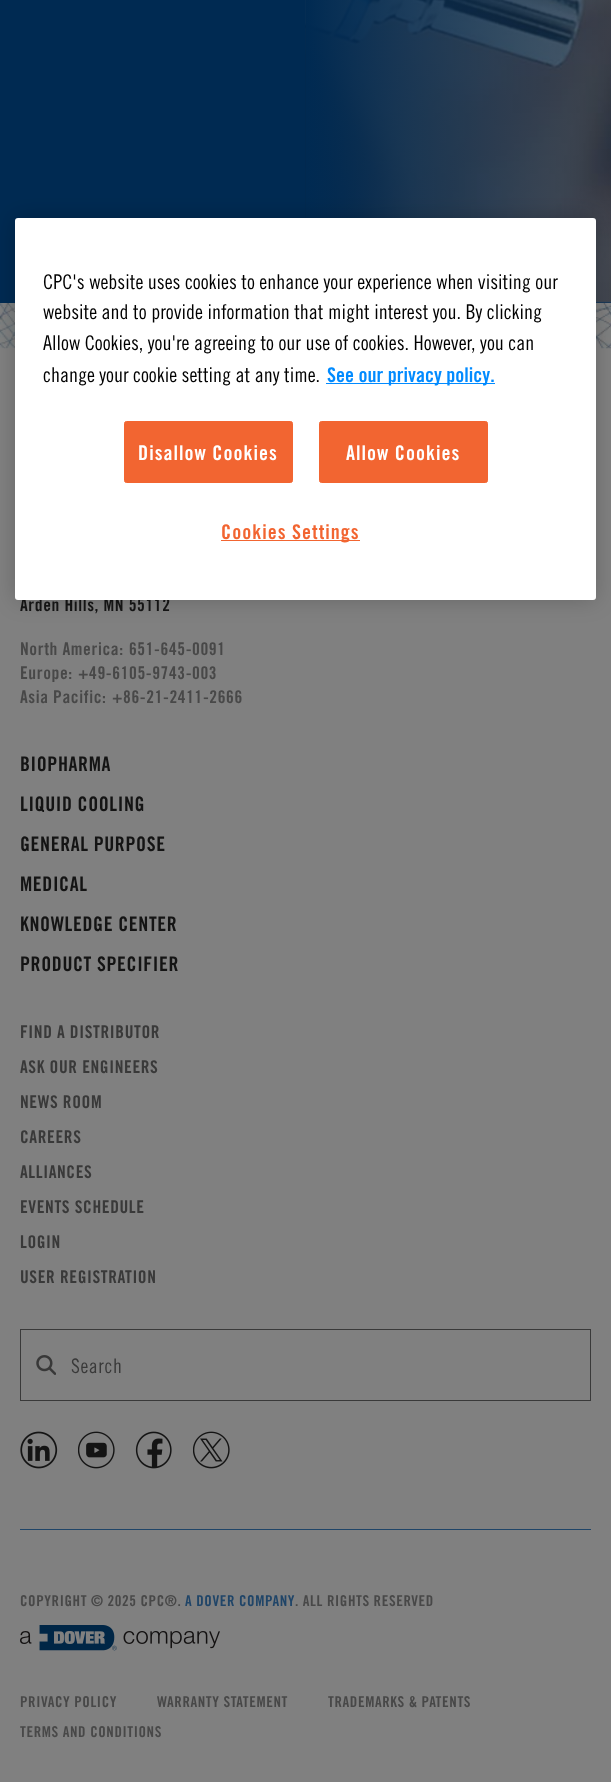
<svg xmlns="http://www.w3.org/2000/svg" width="611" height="1782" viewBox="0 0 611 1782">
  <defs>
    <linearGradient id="g1" gradientUnits="userSpaceOnUse" x1="306" y1="-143" x2="611" y2="-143"><stop offset="0" stop-color="#002a52"/><stop offset="1" stop-color="#1e3e5d" stop-opacity="0.52"/></linearGradient>
    <filter id="blur1" x="-50%" y="-200%" width="200%" height="500%"><feGaussianBlur stdDeviation="11"/></filter>
  </defs>
  <rect width="100%" height="100%" fill="#808080"/>
  <rect x="0" y="0" width="611" height="303" fill="#002a52"/>
  <image x="305" y="0" width="306" height="303" href="img1.png"/>
  <rect x="306" y="0" width="305" height="303" fill="url(#g1)"/>
  <image x="0" y="303" width="611" height="46" href="img2.png"/>
  <rect x="15" y="218" width="581" height="382" rx="3" fill="#000000" fill-opacity="0.2" filter="url(#blur1)"/>
  <text x="20" y="611" font-family="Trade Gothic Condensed" font-size="17.5" font-weight="bold" letter-spacing="0.6" fill="#141414">Arden Hills, MN 55112</text>
  <rect x="15" y="218" width="581" height="382" rx="3" fill="#ffffff"/>
  <text x="43" y="289" font-family="Trade Gothic Condensed" font-size="20.3" fill="#000000">CPC's website uses cookies to enhance your experience when visiting our</text>
  <text x="43" y="319" font-family="Trade Gothic Condensed" font-size="20.3" fill="#000000">website and to provide information that might interest you. By clicking</text>
  <text x="43" y="350" font-family="Trade Gothic Condensed" font-size="20.3" fill="#000000">Allow Cookies, you're agreeing to our use of cookies. However, you can</text>
  <text x="43" y="382" font-family="Trade Gothic Condensed" font-size="20.3" fill="#000000">change your cookie setting at any time.</text>
  <rect x="326" y="383" width="169" height="1" fill="#028bff"/>
  <text x="327" y="382" font-family="Trade Gothic Condensed" font-size="20.3" font-weight="bold" fill="#028bff">See our privacy policy.</text>
  <rect x="124.5" y="421.5" width="168" height="61" rx="2" fill="#f26531" stroke="#f26531"/>
  <text x="138" y="460" font-family="Trade Gothic Condensed" font-size="20.3" font-weight="bold" letter-spacing="1" fill="#ffffff">Disallow Cookies</text>
  <rect x="319.5" y="421.5" width="168" height="61" rx="2" fill="#f26531" stroke="#f26531"/>
  <text x="346" y="460" font-family="Trade Gothic Condensed" font-size="20.3" font-weight="bold" letter-spacing="1" fill="#ffffff">Allow Cookies</text>
  <rect x="221" y="540" width="139" height="1" fill="#f26531"/>
  <text x="221" y="539" font-family="Trade Gothic Condensed" font-size="20.3" font-weight="bold" letter-spacing="1" fill="#f26531">Cookies Settings</text>
  <text x="20" y="655" font-family="Trade Gothic Condensed" font-size="17.5" font-weight="bold" letter-spacing="0.6" fill="#484848">North America:</text>
  <text x="129" y="655" font-family="Trade Gothic Condensed" font-size="17.5" font-weight="bold" letter-spacing="0.6" fill="#484848">651-645-0091</text>
  <text x="20" y="679" font-family="Trade Gothic Condensed" font-size="17.5" font-weight="bold" letter-spacing="0.6" fill="#484848">Europe:</text>
  <text x="78" y="679" font-family="Trade Gothic Condensed" font-size="17.5" font-weight="bold" letter-spacing="0.6" fill="#484848">+49-6105-9743-003</text>
  <text x="20" y="703" font-family="Trade Gothic Condensed" font-size="17.5" font-weight="bold" letter-spacing="0.6" fill="#484848">Asia Pacific:</text>
  <text x="112" y="703" font-family="Trade Gothic Condensed" font-size="17.5" font-weight="bold" letter-spacing="0.6" fill="#484848">+86-21-2411-2666</text>
  <text x="20" y="771" font-family="Trade Gothic Condensed" font-size="20" font-weight="bold" letter-spacing="0.6" fill="#141414">BIOPHARMA</text>
  <text x="20" y="811" font-family="Trade Gothic Condensed" font-size="20" font-weight="bold" letter-spacing="0.6" fill="#141414">LIQUID COOLING</text>
  <text x="20" y="851" font-family="Trade Gothic Condensed" font-size="20" font-weight="bold" letter-spacing="0.6" fill="#141414">GENERAL PURPOSE</text>
  <text x="20" y="891" font-family="Trade Gothic Condensed" font-size="20" font-weight="bold" letter-spacing="0.6" fill="#141414">MEDICAL</text>
  <text x="20" y="931" font-family="Trade Gothic Condensed" font-size="20" font-weight="bold" letter-spacing="0.6" fill="#141414">KNOWLEDGE CENTER</text>
  <text x="20" y="971" font-family="Trade Gothic Condensed" font-size="20" font-weight="bold" letter-spacing="0.6" fill="#141414">PRODUCT SPECIFIER</text>
  <text x="20" y="1038" font-family="Trade Gothic Condensed" font-size="17.5" font-weight="bold" letter-spacing="0.6" fill="#393939">FIND A DISTRIBUTOR</text>
  <text x="20" y="1073" font-family="Trade Gothic Condensed" font-size="17.5" font-weight="bold" letter-spacing="0.6" fill="#393939">ASK OUR ENGINEERS</text>
  <text x="20" y="1108" font-family="Trade Gothic Condensed" font-size="17.5" font-weight="bold" letter-spacing="0.6" fill="#393939">NEWS ROOM</text>
  <text x="20" y="1143" font-family="Trade Gothic Condensed" font-size="17.5" font-weight="bold" letter-spacing="0.6" fill="#393939">CAREERS</text>
  <text x="20" y="1178" font-family="Trade Gothic Condensed" font-size="17.5" font-weight="bold" letter-spacing="0.6" fill="#393939">ALLIANCES</text>
  <text x="20" y="1213" font-family="Trade Gothic Condensed" font-size="17.5" font-weight="bold" letter-spacing="0.6" fill="#393939">EVENTS SCHEDULE</text>
  <text x="20" y="1248" font-family="Trade Gothic Condensed" font-size="17.5" font-weight="bold" letter-spacing="0.6" fill="#393939">LOGIN</text>
  <text x="20" y="1283" font-family="Trade Gothic Condensed" font-size="17.5" font-weight="bold" letter-spacing="0.6" fill="#393939">USER REGISTRATION</text>
  <rect x="20.5" y="1329.5" width="570" height="71" fill="none" stroke="#393939"/>
  <image x="36" y="1355" width="20" height="20" href="img3.png"/>
  <text x="71" y="1373" font-family="Trade Gothic Condensed" font-size="20" letter-spacing="0.6" fill="#393939">Search</text>
  <image x="20" y="1431" width="38" height="38" href="img4.png"/>
  <image x="78" y="1431" width="37" height="38" href="img5.png"/>
  <image x="135" y="1431" width="37" height="38" href="img6.png"/>
  <image x="193" y="1431" width="37" height="38" href="img7.png"/>
  <rect x="20" y="1529" width="571" height="1" fill="#204568"/>
  <text x="20" y="1606" font-family="Trade Gothic Condensed" font-size="15" font-weight="bold" letter-spacing="0.6" fill="#484848">COPYRIGHT © 2025 CPC®.</text>
  <text x="185" y="1606" font-family="Trade Gothic Condensed" font-size="15" font-weight="bold" letter-spacing="0.6" fill="#204568">A DOVER COMPANY</text>
  <text x="295" y="1606" font-family="Trade Gothic Condensed" font-size="15" font-weight="bold" letter-spacing="0.6" fill="#484848">. ALL RIGHTS RESERVED</text>
  <image x="20" y="1625" width="200" height="26" href="img8.png"/>
  <text x="20" y="1707" font-family="Trade Gothic Condensed" font-size="15" font-weight="bold" letter-spacing="0.6" fill="#484848">PRIVACY POLICY</text>
  <text x="157" y="1707" font-family="Trade Gothic Condensed" font-size="15" font-weight="bold" letter-spacing="0.6" fill="#484848">WARRANTY STATEMENT</text>
  <text x="328" y="1707" font-family="Trade Gothic Condensed" font-size="15" font-weight="bold" letter-spacing="0.6" fill="#484848">TRADEMARKS &amp; PATENTS</text>
  <text x="20" y="1737" font-family="Trade Gothic Condensed" font-size="15" font-weight="bold" letter-spacing="0.6" fill="#484848">TERMS AND CONDITIONS</text>
</svg>
